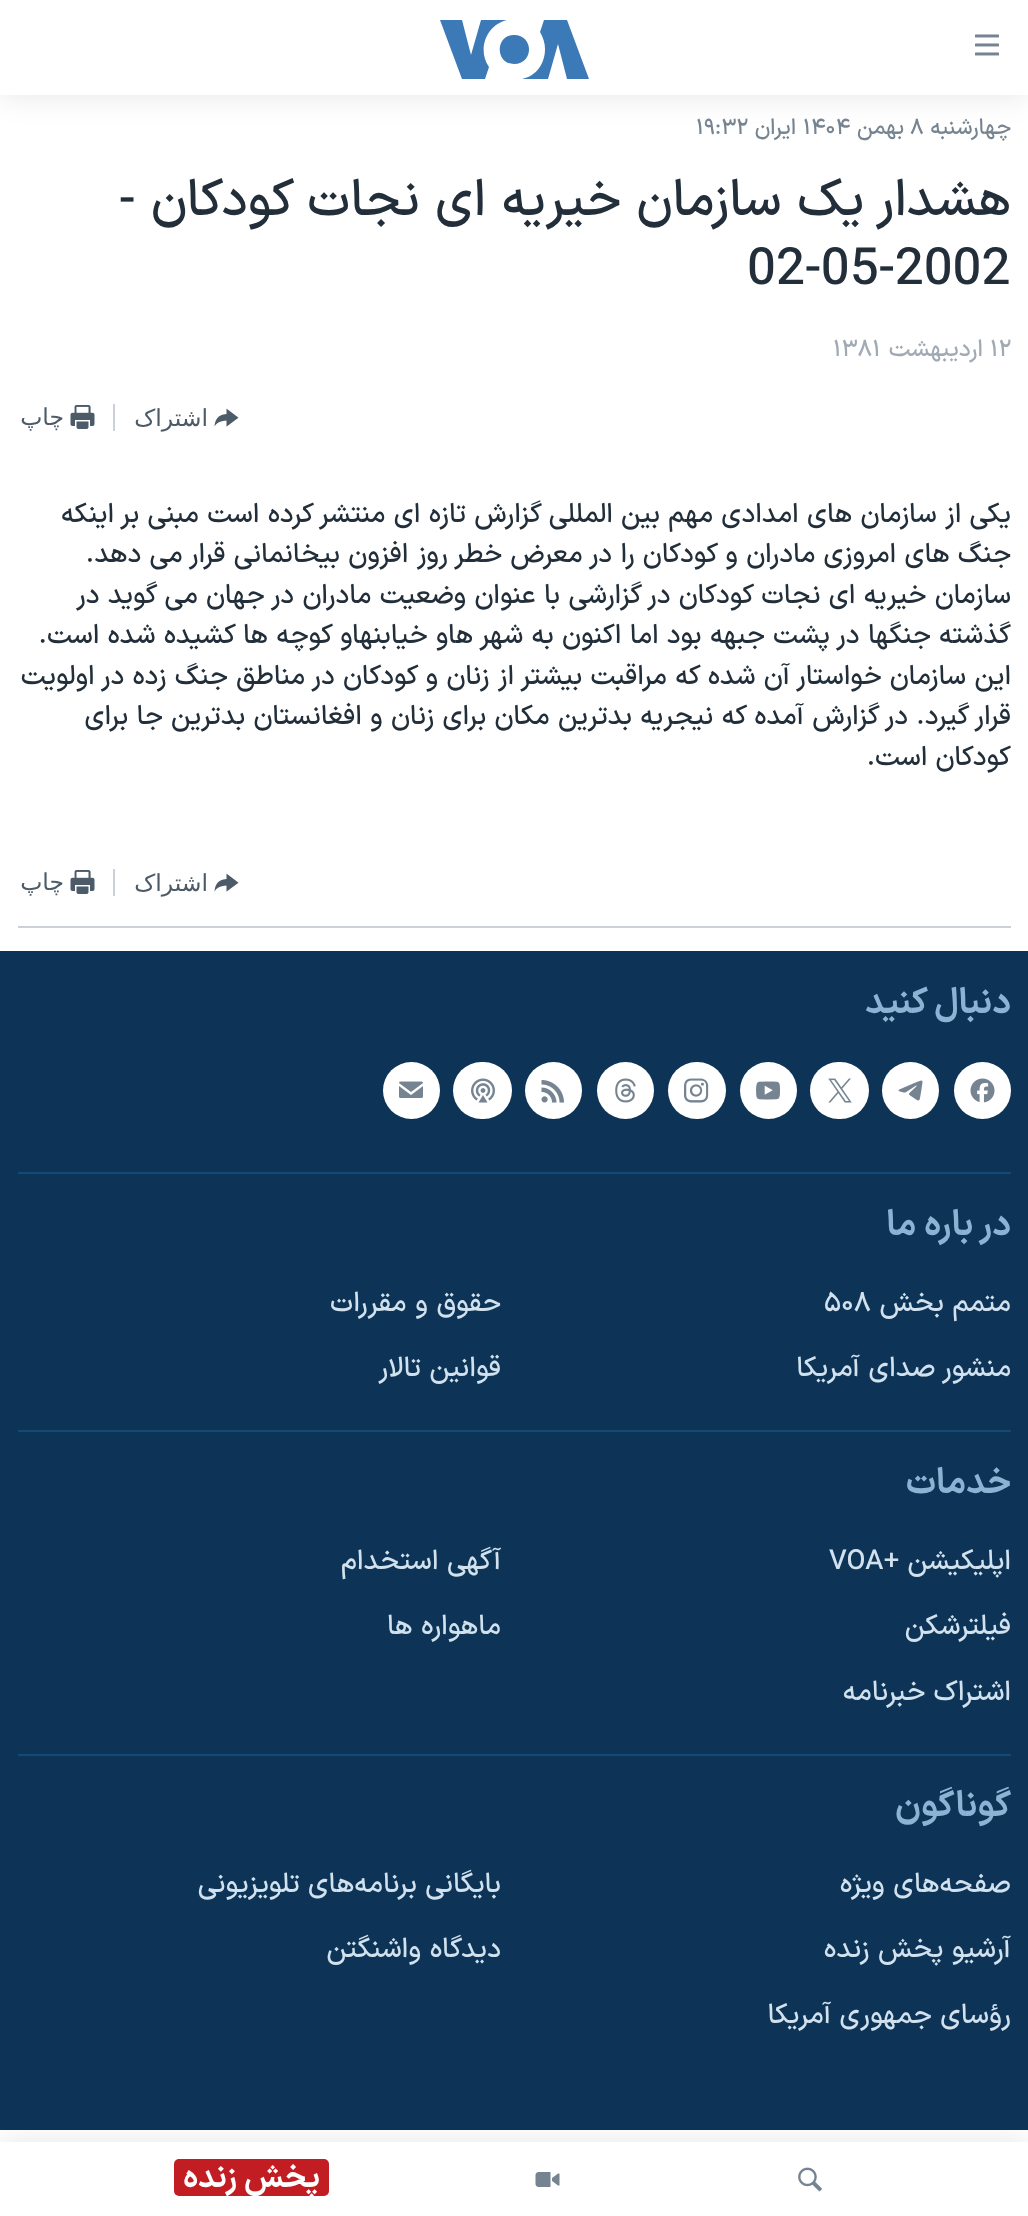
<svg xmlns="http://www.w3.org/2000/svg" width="1028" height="2216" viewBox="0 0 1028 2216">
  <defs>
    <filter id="blur1" x="-50%" y="-200%" width="200%" height="500%"><feGaussianBlur stdDeviation="15"/></filter>
    <clipPath id="clip1"><rect x="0" y="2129" width="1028" height="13"/></clipPath>
  </defs>
  <rect width="100%" height="100%" fill="#ffffff"/>
  <text x="1011" y="134" font-family="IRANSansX" font-size="22" font-weight="500" direction="rtl" fill="#768492">چهارشنبه</text>
  <text x="910" y="134" font-family="IRANSansX" font-size="22" font-weight="500" fill="#768492">۸</text>
  <text x="904" y="134" font-family="IRANSansX" font-size="22" font-weight="500" direction="rtl" fill="#768492">بهمن</text>
  <text x="803" y="134" font-family="IRANSansX" font-size="22" font-weight="500" fill="#768492">۱۴۰۴</text>
  <text x="796" y="134" font-family="IRANSansX" font-size="22" font-weight="500" direction="rtl" fill="#768492">ایران</text>
  <text x="696" y="134" font-family="IRANSansX" font-size="22" font-weight="500" fill="#768492">۱۹:۳۲</text>
  <text x="1011" y="215" font-family="IRANSansX" font-size="51.25" font-weight="500" direction="rtl" fill="#222f3a">هشدار يک سازمان خيريه ای نجات کودکان -</text>
  <text x="747" y="284" font-family="IRANSansX" font-size="51.25" font-weight="500" fill="#222f3a">02-05-2002</text>
  <text x="990" y="356" font-family="IRANSansX" font-size="23.5" font-weight="500" fill="#a1aab4">۱۲</text>
  <text x="983" y="356" font-family="IRANSansX" font-size="23.5" font-weight="500" direction="rtl" fill="#a1aab4">اردیبهشت</text>
  <text x="833" y="356" font-family="IRANSansX" font-size="23.5" font-weight="500" fill="#a1aab4">۱۳۸۱</text>
  <image x="214" y="408" width="25" height="19" href="img1.png"/>
  <text x="208" y="426" font-family="DejaVu Sans" font-size="23.5" direction="rtl" fill="#4d5a67">اشتراک</text>
  <rect x="113" y="404" width="2" height="27" fill="#cbd1d6"/>
  <image x="70" y="405" width="25" height="24" href="img2.png"/>
  <text x="64" y="425" font-family="DejaVu Sans" font-size="23.5" direction="rtl" fill="#4d5a67">چاپ</text>
  <text x="1011" y="522" font-family="IRANSansX" font-size="27" font-weight="500" direction="rtl" fill="#222f3a">يکی از سازمان های امدادی مهم بين المللی گزارش تازه ای منتشر کرده است مبنی بر اينکه</text>
  <text x="1011" y="562" font-family="IRANSansX" font-size="27" font-weight="500" direction="rtl" fill="#222f3a">جنگ های امروزی مادران و کودکان را در معرض خطر روز افزون بيخانمانی قرار می دهد.</text>
  <text x="1011" y="603" font-family="IRANSansX" font-size="27" font-weight="500" direction="rtl" fill="#222f3a">سازمان خيريه ای نجات کودکان در گزارشی با عنوان وضعيت مادران در جهان می گويد در</text>
  <text x="1011" y="643" font-family="IRANSansX" font-size="27" font-weight="500" direction="rtl" fill="#222f3a">گذشته جنگها در پشت جبهه بود اما اکنون به شهر هاو خيابنهاو کوچه ها کشيده شده است.</text>
  <text x="1011" y="684" font-family="IRANSansX" font-size="27" font-weight="500" direction="rtl" fill="#222f3a">اين سازمان خواستار آن شده که مراقبت بيشتر از زنان و کودکان در مناطق جنگ زده در اولويت</text>
  <text x="1011" y="724" font-family="IRANSansX" font-size="27" font-weight="500" direction="rtl" fill="#222f3a">قرار گيرد. در گزارش آمده که نيجريه بدترين مکان برای زنان و افغانستان بدترين جا برای</text>
  <text x="1011" y="765" font-family="IRANSansX" font-size="27" font-weight="500" direction="rtl" fill="#222f3a">کودکان است.</text>
  <rect x="18" y="926" width="993" height="2" fill="#cbd1d6"/>
  <image x="214" y="873" width="25" height="19" href="img1.png"/>
  <text x="208" y="891" font-family="DejaVu Sans" font-size="23.5" direction="rtl" fill="#4d5a67">اشتراک</text>
  <rect x="113" y="869" width="2" height="27" fill="#cbd1d6"/>
  <image x="70" y="870" width="25" height="24" href="img2.png"/>
  <text x="64" y="890" font-family="DejaVu Sans" font-size="23.5" direction="rtl" fill="#4d5a67">چاپ</text>
  <rect x="0" y="951" width="1028" height="1179" fill="#0d3456"/>
  <text x="1011" y="1013" font-family="IRANSansX" font-size="35.5" font-weight="bold" direction="rtl" fill="#8db3d4">دنبال کنید</text>
  <circle cx="982.5" cy="1090.5" r="28.5" fill="#ffffff"/>
  <image x="970" y="1078" width="25" height="25" href="img3.png"/>
  <circle cx="910.5" cy="1090.5" r="28.5" fill="#ffffff"/>
  <image x="898" y="1080" width="25" height="21" href="img4.png"/>
  <rect x="810" y="1062" width="59" height="57" rx="28.5" fill="#ffffff"/>
  <image x="828" y="1078" width="24" height="25" href="img5.png"/>
  <circle cx="768.5" cy="1090.5" r="28.5" fill="#ffffff"/>
  <image x="756" y="1081" width="24" height="19" href="img6.png"/>
  <rect x="668" y="1062" width="58" height="57" rx="28.5" fill="#ffffff"/>
  <image x="684" y="1078" width="25" height="25" href="img7.png"/>
  <circle cx="625.5" cy="1090.5" r="28.5" fill="#ffffff"/>
  <image x="615" y="1078" width="21" height="25" href="img8.png"/>
  <circle cx="553.5" cy="1090.5" r="28.5" fill="#ffffff"/>
  <image x="541" y="1080" width="23" height="23" href="img9.png"/>
  <rect x="453" y="1062" width="59" height="57" rx="28.5" fill="#ffffff"/>
  <image x="471" y="1078" width="24" height="25" href="img10.png"/>
  <circle cx="411.5" cy="1090.5" r="28.5" fill="#ffffff"/>
  <image x="399" y="1081" width="24" height="17" href="img11.png"/>
  <rect x="18" y="1172" width="993" height="2" fill="#134976"/>
  <text x="1011" y="1235" font-family="IRANSansX" font-size="35.5" font-weight="bold" direction="rtl" fill="#8db3d4">در باره ما</text>
  <text x="1011" y="1311" font-family="IRANSansX" font-size="27.6" font-weight="500" direction="rtl" fill="#d1e1ee">متمم بخش</text>
  <text x="824" y="1311" font-family="IRANSansX" font-size="27.6" font-weight="500" fill="#d1e1ee">۵۰۸</text>
  <text x="501" y="1311" font-family="IRANSansX" font-size="27.6" font-weight="500" direction="rtl" fill="#d1e1ee">حقوق و مقررات</text>
  <text x="1011" y="1376" font-family="IRANSansX" font-size="27.6" font-weight="500" direction="rtl" fill="#d1e1ee">منشور صدای آمریکا</text>
  <text x="501" y="1376" font-family="IRANSansX" font-size="27.6" font-weight="500" direction="rtl" fill="#d1e1ee">قوانین تالار</text>
  <rect x="18" y="1430" width="993" height="2" fill="#134976"/>
  <text x="1011" y="1493" font-family="IRANSansX" font-size="35.5" font-weight="bold" direction="rtl" fill="#8db3d4">خدمات</text>
  <text x="1011" y="1569" font-family="IRANSansX" font-size="27.6" font-weight="500" direction="rtl" fill="#d1e1ee">اپلیکیشن +</text>
  <text x="829" y="1569" font-family="IRANSansX" font-size="27.6" font-weight="500" fill="#d1e1ee">VOA</text>
  <text x="501" y="1569" font-family="IRANSansX" font-size="27.6" font-weight="500" direction="rtl" fill="#d1e1ee">آگهی استخدام</text>
  <text x="1011" y="1634" font-family="IRANSansX" font-size="27.6" font-weight="500" direction="rtl" fill="#d1e1ee">فیلترشکن</text>
  <text x="501" y="1634" font-family="IRANSansX" font-size="27.6" font-weight="500" direction="rtl" fill="#d1e1ee">ماهواره ها</text>
  <text x="1011" y="1700" font-family="IRANSansX" font-size="27.6" font-weight="500" direction="rtl" fill="#d1e1ee">اشتراک خبرنامه</text>
  <rect x="18" y="1754" width="993" height="2" fill="#134976"/>
  <text x="1011" y="1816" font-family="IRANSansX" font-size="35.5" font-weight="bold" direction="rtl" fill="#8db3d4">گوناگون</text>
  <text x="1011" y="1892" font-family="IRANSansX" font-size="27.6" font-weight="500" direction="rtl" fill="#d1e1ee">صفحه‌های ویژه</text>
  <text x="501" y="1892" font-family="IRANSansX" font-size="27.6" font-weight="500" direction="rtl" fill="#d1e1ee">بایگانی برنامه‌های تلویزیونی</text>
  <text x="1011" y="1957" font-family="IRANSansX" font-size="27.6" font-weight="500" direction="rtl" fill="#d1e1ee">آرشیو پخش زنده</text>
  <text x="501" y="1957" font-family="IRANSansX" font-size="27.6" font-weight="500" direction="rtl" fill="#d1e1ee">دیدگاه‌ واشنگتن</text>
  <text x="1011" y="2023" font-family="IRANSansX" font-size="27.6" font-weight="500" direction="rtl" fill="#d1e1ee">رؤسای جمهوری آمریکا</text>
  <rect x="0" y="0" width="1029" height="95" fill="#000000" fill-opacity="0.1" filter="url(#blur1)"/>
  <rect x="0" y="0" width="1028" height="95" fill="#ffffff"/>
  <image x="975" y="34" width="24" height="22" href="img12.png"/>
  <path d="M489 67L485 79H462L440 20H462L471 55L481 20H507C486 25 477 50 489 67ZM514 35C495 35 495 64 514 64C534 64 534 35 514 35ZM545 49C545 64 536 76 522 79H548L558 44L567 79H589L567 20H544L540 32C543 37 545 43 545 49Z" fill="#3b79b7"/>
  <g clip-path="url(#clip1)">
    <rect x="0" y="2142" width="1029" height="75" fill="#000000" fill-opacity="0.1" filter="url(#blur1)"/>
  </g>
  <image x="798" y="2167" width="24" height="25" href="img13.png"/>
  <image x="535" y="2172" width="25" height="15" href="img14.png"/>
  <rect x="174" y="2159" width="155" height="37" rx="5" fill="#c11d22"/>
  <text x="320" y="2187" font-family="IRANSansX" font-size="31.5" font-weight="bold" direction="rtl" fill="#ffffff">پخش زنده</text>
</svg>
